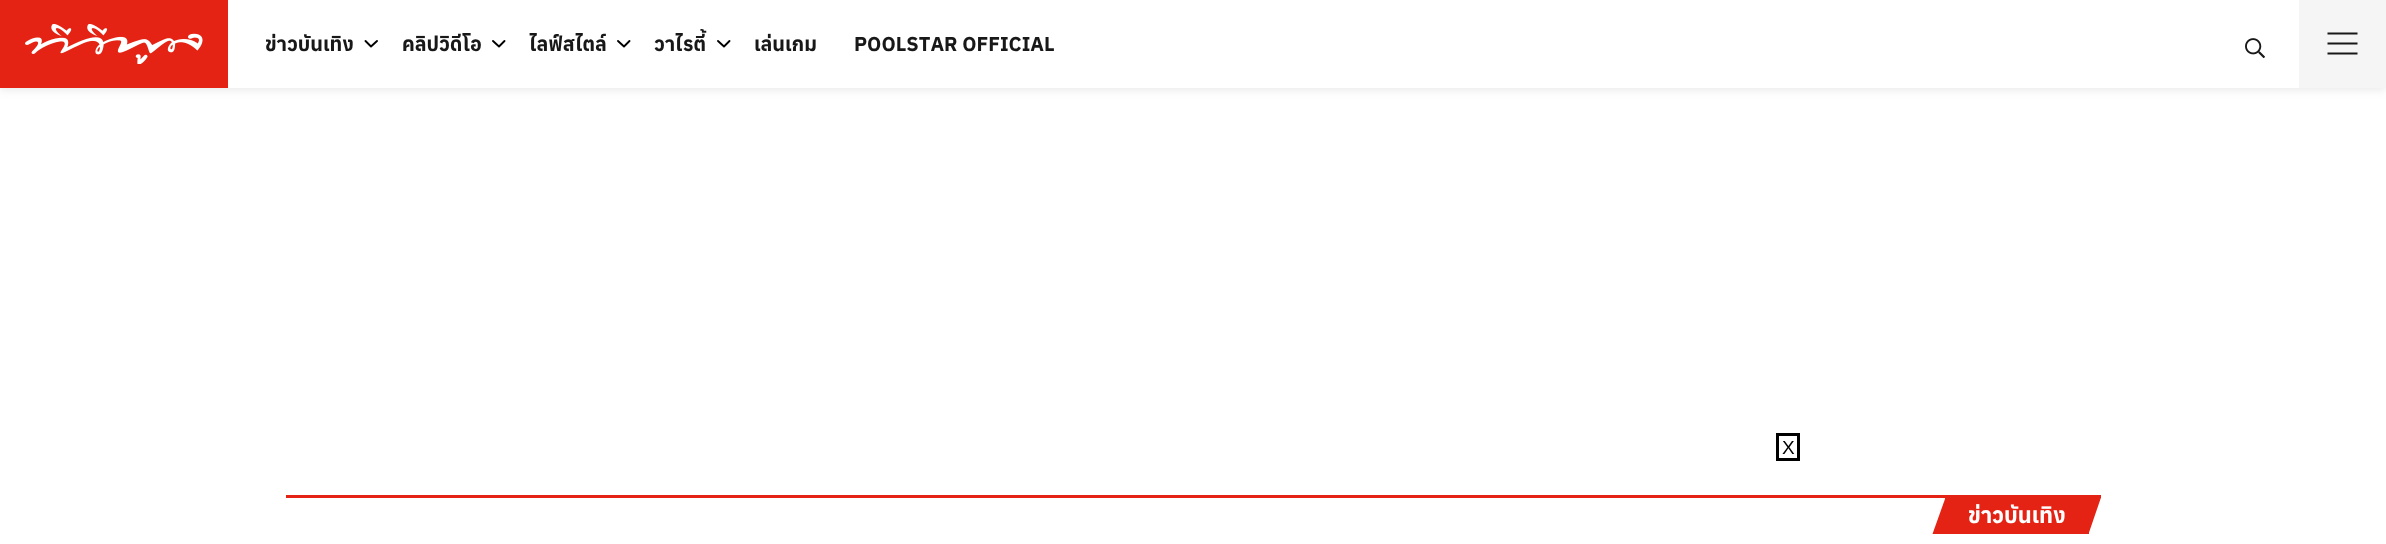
<svg xmlns="http://www.w3.org/2000/svg" width="2386" height="544" viewBox="0 0 2386 544">
  <defs>
    <filter id="blur1" x="-50%" y="-200%" width="200%" height="500%"><feGaussianBlur stdDeviation="4.5"/></filter>
  </defs>
  <rect width="100%" height="100%" fill="#ffffff"/>
  <rect x="0" y="3" width="2386" height="87" fill="#a9a9a9" fill-opacity="0.25" filter="url(#blur1)"/>
  <rect x="228" y="0" width="2071" height="88" fill="#ffffff"/>
  <rect x="0" y="0" width="228" height="88" fill="#e42314"/>
  <image x="25" y="24" width="178" height="40" href="img1.png"/>
  <text x="265" y="51" font-family="Anuphan" font-size="20" font-weight="bold" fill="#181818">ข่าวบันเทิง</text>
  <path d="M365.5 41L371 46.5L377 41" fill="none" stroke="#000000" stroke-width="1.9" stroke-linecap="round" stroke-linejoin="round"/>
  <text x="402" y="51" font-family="Anuphan" font-size="20" font-weight="bold" fill="#181818">คลิปวิดีโอ</text>
  <path d="M493 41L499 46.5L504.5 41" fill="none" stroke="#000000" stroke-width="1.9" stroke-linecap="round" stroke-linejoin="round"/>
  <text x="529" y="51" font-family="Anuphan" font-size="20" font-weight="bold" fill="#181818">ไลฟ์สไตล์</text>
  <path d="M618 41L624 46.5L629.5 41" fill="none" stroke="#000000" stroke-width="1.9" stroke-linecap="round" stroke-linejoin="round"/>
  <text x="654" y="51" font-family="Anuphan" font-size="20" font-weight="bold" fill="#181818">วาไรตี้</text>
  <path d="M718 41L724 46.5L729.5 41" fill="none" stroke="#000000" stroke-width="1.9" stroke-linecap="round" stroke-linejoin="round"/>
  <text x="754" y="51" font-family="Anuphan" font-size="20" font-weight="bold" fill="#181818">เล่นเกม</text>
  <text x="854" y="51" font-family="Anuphan" font-size="20" font-weight="bold" fill="#181818">POOLSTAR OFFICIAL</text>
  <image x="2245" y="38" width="20" height="21" href="img2.png"/>
  <rect x="2299" y="0" width="87" height="88" fill="#f5f5f5"/>
  <path d="M2327.5 33.5H2357.5M2327.5 43.5H2357.5M2327.5 53.5H2357.5" fill="none" stroke="#181818" stroke-width="1.8"/>
  <rect x="286" y="495" width="1815" height="3" fill="#e42314"/>
  <rect x="1945" y="498" width="144" height="36" fill="#e42314"/>
  <path d="M1945 534H1932.5L1945 499Z" fill="#e42314"/>
  <text x="1968" y="523" font-family="Anuphan" font-size="22" font-weight="bold" fill="#ffffff">ข่าวบันเทิง</text>
  <path d="M2089 497.5H2101L2089 532.5Z" fill="#e42314"/>
  <rect x="1777.5" y="434.5" width="21" height="25" fill="none" stroke="#000000" stroke-width="3"/>
  <text x="1782" y="454" font-family="Liberation Sans" font-size="19" fill="#000000">X</text>
</svg>
